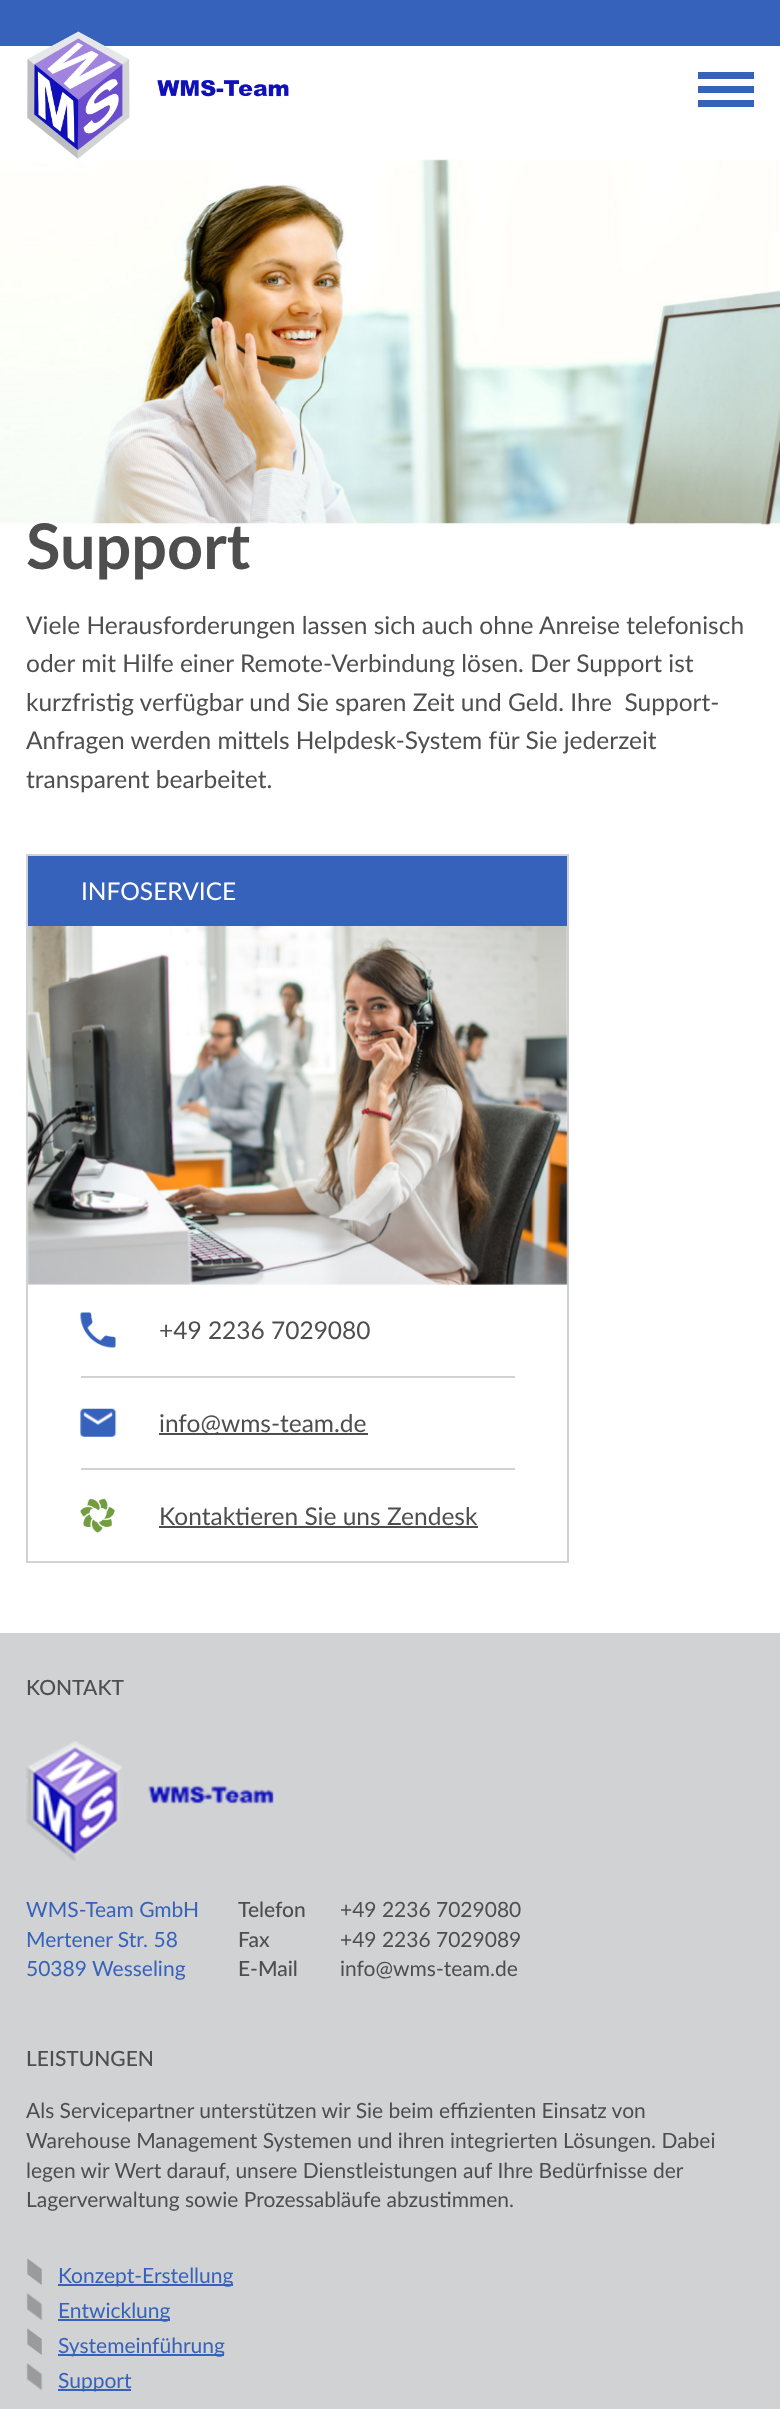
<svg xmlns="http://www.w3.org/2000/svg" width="780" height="2409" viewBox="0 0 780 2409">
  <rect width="100%" height="100%" fill="#ffffff"/>
  <image x="0" y="159" width="780" height="367" href="img1.png"/>
  <rect x="0" y="0" width="780" height="46" fill="#3762bc"/>
  <image x="27" y="31" width="262" height="128" href="img2.png"/>
  <rect x="698" y="72" width="56" height="7" fill="#3762bc"/>
  <rect x="698" y="86" width="56" height="7" fill="#3762bc"/>
  <rect x="698" y="100" width="56" height="7" fill="#3762bc"/>
  <text x="26" y="569" font-family="Lato" font-size="63" font-weight="bold" fill="#4e4e4e">Support</text>
  <text x="26" y="634" font-family="Lato" font-size="24.5" fill="#4e4e4e">Viele Herausforderungen lassen sich auch ohne Anreise telefonisch</text>
  <text x="26" y="672" font-family="Lato" font-size="24.5" fill="#4e4e4e">oder mit Hilfe einer Remote-Verbindung lösen. Der Support ist</text>
  <text x="26" y="711" font-family="Lato" font-size="24.5" fill="#4e4e4e" xml:space="preserve">kurzfristig verfügbar und Sie sparen Zeit und Geld. Ihre  Support-</text>
  <text x="26" y="749" font-family="Lato" font-size="24.5" fill="#4e4e4e">Anfragen werden mittels Helpdesk-System für Sie jederzeit</text>
  <text x="26" y="788" font-family="Lato" font-size="24.5" fill="#4e4e4e">transparent bearbeitet.</text>
  <rect x="27" y="855" width="541" height="707" fill="none" stroke="#d1d2d4" stroke-width="2"/>
  <rect x="28" y="856" width="539" height="70" fill="#3762bc"/>
  <text x="81" y="900" font-family="Lato" font-size="24.5" fill="#ffffff">INFOSERVICE</text>
  <image x="27" y="926" width="541" height="359" href="img3.png"/>
  <image x="80" y="1312" width="36" height="36" href="img4.png"/>
  <text x="159" y="1339" font-family="Lato" font-size="24.5" fill="#4e4e4e">+49 2236 7029080</text>
  <image x="80" y="1408" width="37" height="29" href="img5.png"/>
  <rect x="81" y="1376" width="434" height="2" fill="#d1d2d4"/>
  <rect x="159" y="1433" width="209" height="2" fill="#4e4e4e"/>
  <text x="159" y="1432" font-family="Lato" font-size="24.5" fill="#4e4e4e">info@wms-team.de</text>
  <image x="80" y="1498" width="35" height="35" href="img6.png"/>
  <rect x="81" y="1468" width="434" height="2" fill="#d1d2d4"/>
  <text x="159" y="1525" font-family="Lato" font-size="24.5" fill="#4e4e4e">Kontaktieren Sie uns Zendesk</text>
  <rect x="159" y="1526" width="319" height="2" fill="#4e4e4e"/>
  <rect x="0" y="1633" width="780" height="776" fill="#d1d2d4"/>
  <text x="26" y="1695" font-family="Lato" font-size="21" font-weight="500" fill="#4e4e4e">KONTAKT</text>
  <image x="26" y="1741" width="248" height="121" href="img7.png"/>
  <text x="26" y="1917" font-family="Lato" font-size="21" fill="#3762bc">WMS-Team GmbH</text>
  <text x="26" y="1947" font-family="Lato" font-size="21" fill="#3762bc">Mertener Str. 58</text>
  <text x="26" y="1976" font-family="Lato" font-size="21" fill="#3762bc">50389 Wesseling</text>
  <text x="238" y="1917" font-family="Lato" font-size="21" font-weight="500" fill="#4e4e4e">Telefon</text>
  <text x="340" y="1917" font-family="Lato" font-size="21" fill="#4e4e4e">+49 2236 7029080</text>
  <text x="238" y="1947" font-family="Lato" font-size="21" font-weight="500" fill="#4e4e4e">Fax</text>
  <text x="340" y="1947" font-family="Lato" font-size="21" fill="#4e4e4e">+49 2236 7029089</text>
  <text x="238" y="1976" font-family="Lato" font-size="21" font-weight="500" fill="#4e4e4e">E-Mail</text>
  <text x="340" y="1976" font-family="Lato" font-size="21" fill="#4e4e4e">info@wms-team.de</text>
  <text x="26" y="2066" font-family="Lato" font-size="21" font-weight="500" fill="#4e4e4e">LEISTUNGEN</text>
  <text x="26" y="2118" font-family="Lato" font-size="21" fill="#4e4e4e">Als Servicepartner unterstützen wir Sie beim effizienten Einsatz von</text>
  <text x="26" y="2148" font-family="Lato" font-size="21" fill="#4e4e4e">Warehouse Management Systemen und ihren integrierten Lösungen. Dabei</text>
  <text x="26" y="2178" font-family="Lato" font-size="21" fill="#4e4e4e">legen wir Wert darauf, unsere Dienstleistungen auf Ihre Bedürfnisse der</text>
  <text x="26" y="2207" font-family="Lato" font-size="21" fill="#4e4e4e">Lagerverwaltung sowie Prozessabläufe abzustimmen.</text>
  <image x="27" y="2258" width="15" height="27" href="img8.png"/>
  <rect x="58" y="2284" width="175" height="2" fill="#3762bc"/>
  <text x="58" y="2283" font-family="Lato" font-size="21" fill="#3762bc">Konzept-Erstellung</text>
  <image x="26" y="2293" width="17" height="27" href="img9.png"/>
  <rect x="58" y="2319" width="112" height="2" fill="#3762bc"/>
  <text x="58" y="2318" font-family="Lato" font-size="21" fill="#3762bc">Entwicklung</text>
  <image x="27" y="2328" width="15" height="27" href="img8.png"/>
  <rect x="58" y="2354" width="166" height="2" fill="#3762bc"/>
  <text x="58" y="2353" font-family="Lato" font-size="21" fill="#3762bc">Systemeinführung</text>
  <image x="26" y="2363" width="17" height="27" href="img9.png"/>
  <rect x="58" y="2389" width="73" height="2" fill="#3762bc"/>
  <text x="58" y="2388" font-family="Lato" font-size="21" fill="#3762bc">Support</text>
</svg>
